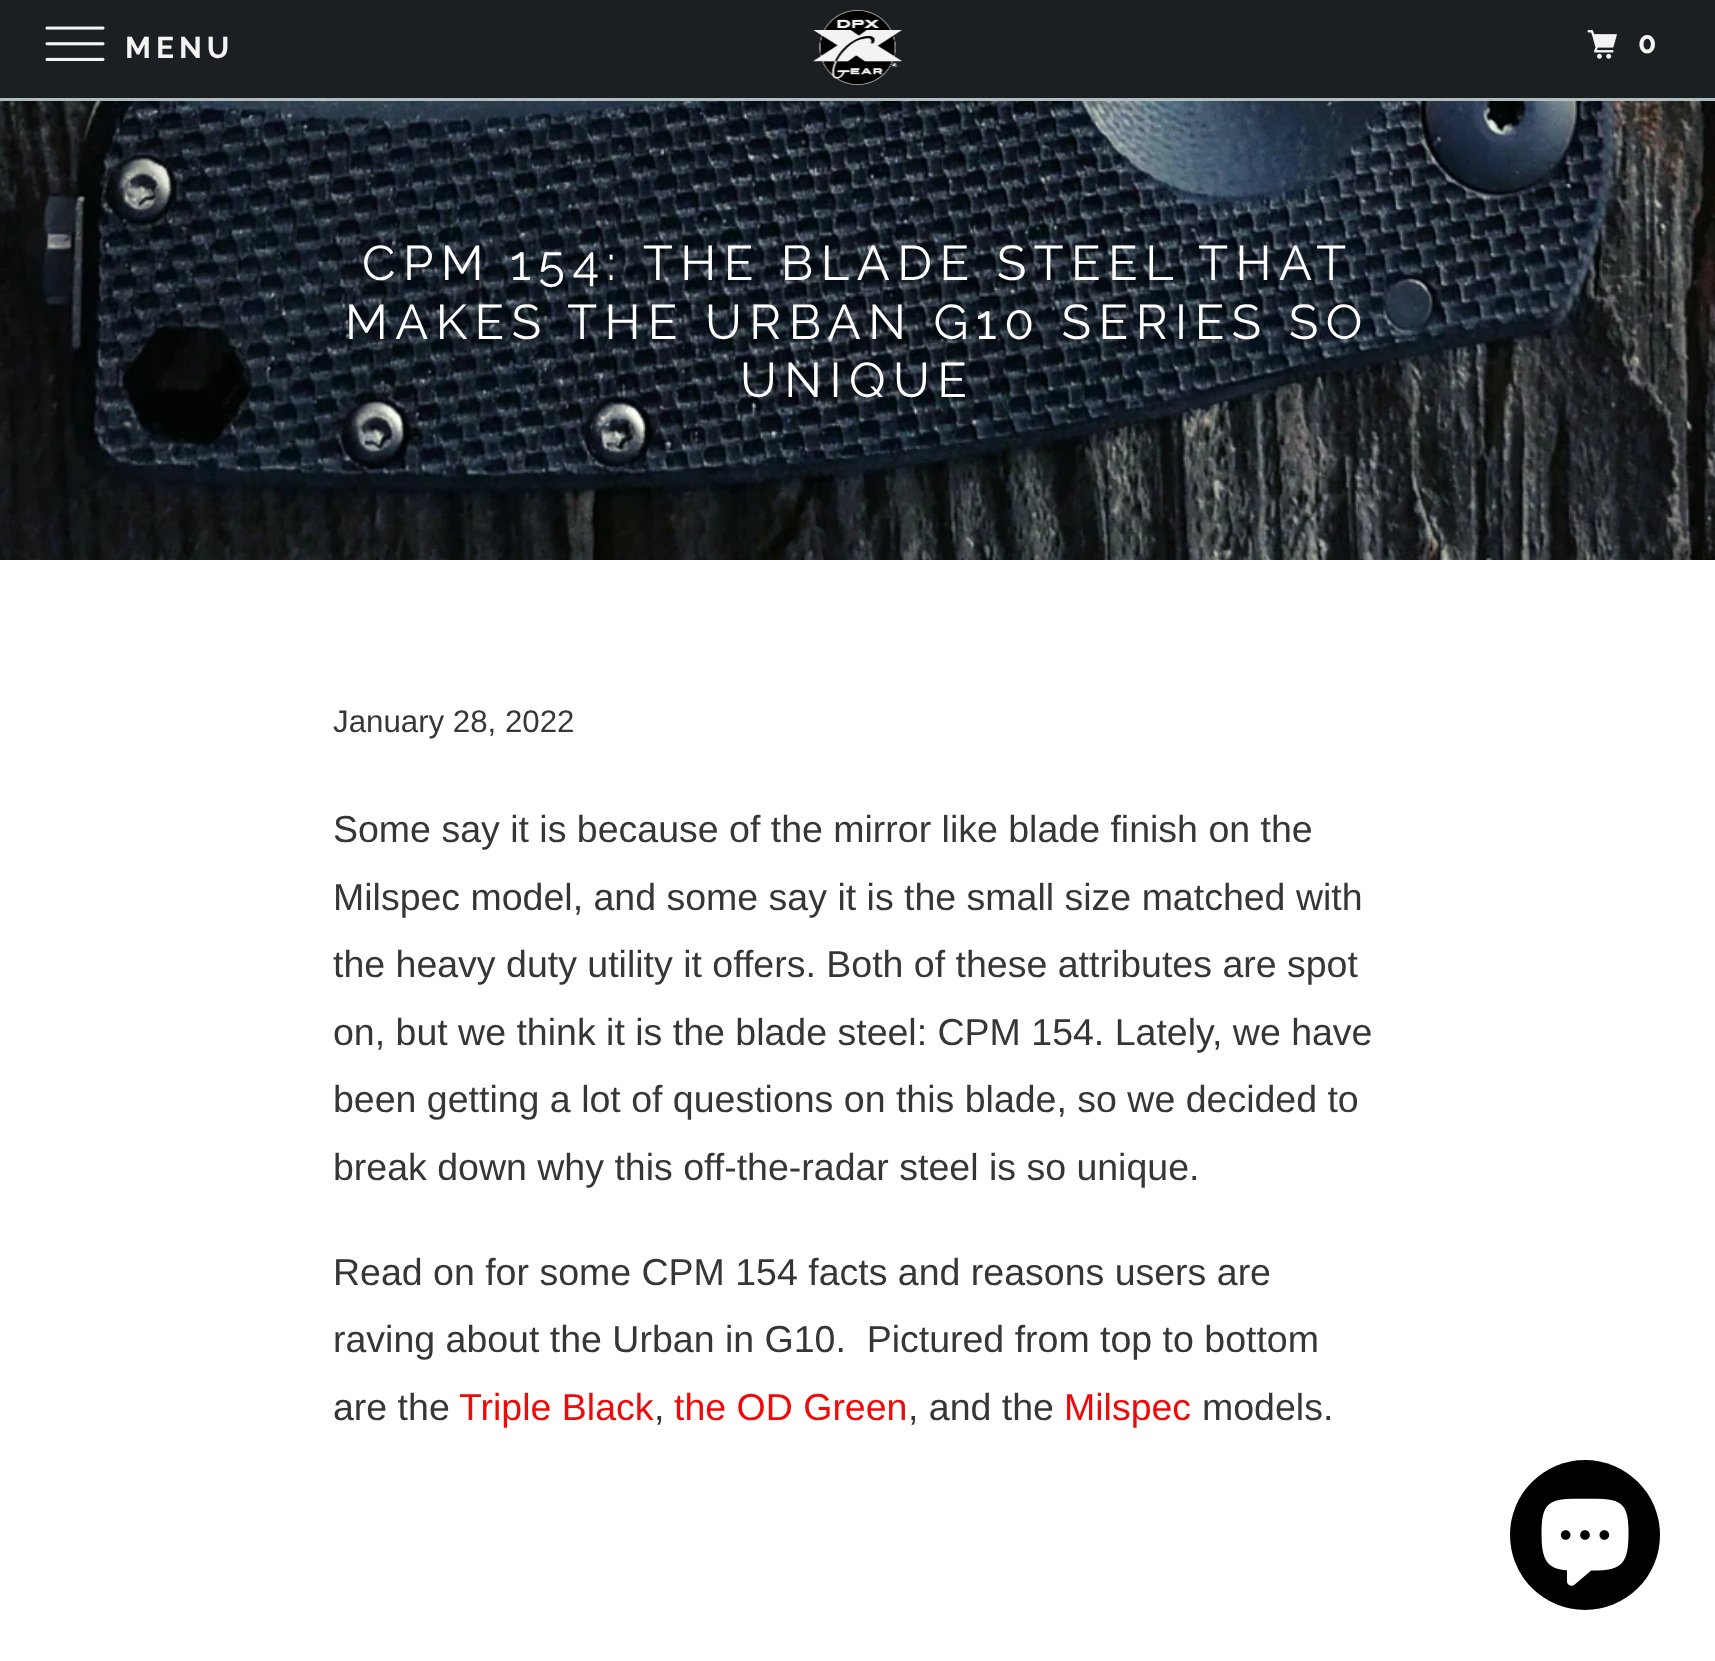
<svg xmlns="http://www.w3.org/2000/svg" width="1715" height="1661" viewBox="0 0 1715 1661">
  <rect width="100%" height="100%" fill="#1b1f23"/>
  <image x="0" y="100" width="1715" height="460" href="img4.png"/>
  <rect x="0" y="98" width="1715" height="3" fill="#b8c6c6" fill-opacity="0.95"/>
  <image x="45" y="26" width="60" height="35" href="img1.png"/>
  <text x="125" y="58" font-family="Raleway" font-size="30" font-weight="bold" letter-spacing="5" fill="#f4f4f4">MENU</text>
  <image x="812" y="10" width="91" height="75" href="img2.png"/>
  <image x="1587" y="30" width="30" height="29" href="img3.png"/>
  <text x="1638" y="53" font-family="Raleway" font-size="30" font-weight="bold" letter-spacing="5" fill="#f4f4f4">0</text>
  <rect x="0" y="560" width="1715" height="1101" fill="#ffffff"/>
  <text x="362" y="280" word-spacing="-1" font-family="Raleway" font-size="48.75" letter-spacing="7.5" fill="#ffffff">CPM 154:</text>
  <text x="643" y="280" font-family="Raleway" font-size="48.75" letter-spacing="7.5" fill="#ffffff">THE BLADE STEEL THAT</text>
  <text x="345" y="339" font-family="Raleway" font-size="48.75" letter-spacing="7.5" fill="#ffffff">MAKES THE URBAN G10 SERIES SO</text>
  <text x="740" y="397" font-family="Raleway" font-size="48.75" letter-spacing="7.5" fill="#ffffff">UNIQUE</text>
  <text x="333" y="732" font-family="Liberation Sans" font-size="31.25" fill="#363636">January 28, 2022</text>
  <text x="333" y="842" font-family="Liberation Sans" font-size="37.5" fill="#363636">Some say it is because of the mirror like blade finish on the</text>
  <text x="333" y="910" font-family="Liberation Sans" font-size="37.5" fill="#363636">Milspec model, and some say it is the small size matched with</text>
  <text x="333" y="977" font-family="Liberation Sans" font-size="37.5" fill="#363636">the heavy duty utility it offers. Both of these attributes are spot</text>
  <text x="333" y="1045" font-family="Liberation Sans" font-size="37.5" fill="#363636">on, but we think it is the blade steel: CPM 154. Lately, we have</text>
  <text x="333" y="1112" font-family="Liberation Sans" font-size="37.5" fill="#363636">been getting a lot of questions on this blade, so we decided to</text>
  <text x="333" y="1180" font-family="Liberation Sans" font-size="37.5" fill="#363636">break down why this off-the-radar steel is so unique.</text>
  <text x="333" y="1285" font-family="Liberation Sans" font-size="37.5" fill="#363636">Read on for some CPM 154 facts and reasons users are</text>
  <text x="333" y="1352" font-family="Liberation Sans" font-size="37.5" fill="#363636" xml:space="preserve">raving about the Urban in G10.  Pictured from top to bottom</text>
  <text x="333" y="1420" font-family="Liberation Sans" font-size="37.5" fill="#363636">are the</text>
  <text x="459" y="1420" font-family="Liberation Sans" font-size="37.5" fill="#f00909">Triple Black</text>
  <text x="654" y="1420" font-family="Liberation Sans" font-size="37.5" fill="#363636">,</text>
  <text x="674" y="1420" font-family="Liberation Sans" font-size="37.5" fill="#f00909">the OD Green</text>
  <text x="908" y="1420" font-family="Liberation Sans" font-size="37.5" fill="#363636">, and the</text>
  <text x="1064" y="1420" font-family="Liberation Sans" font-size="37.5" fill="#f00909">Milspec</text>
  <text x="1202" y="1420" font-family="Liberation Sans" font-size="37.5" fill="#363636">models.</text>
  <circle cx="1585" cy="1535" r="75" fill="#000000"/>
  <image x="1541" y="1498" width="88" height="88" href="img5.png"/>
</svg>
